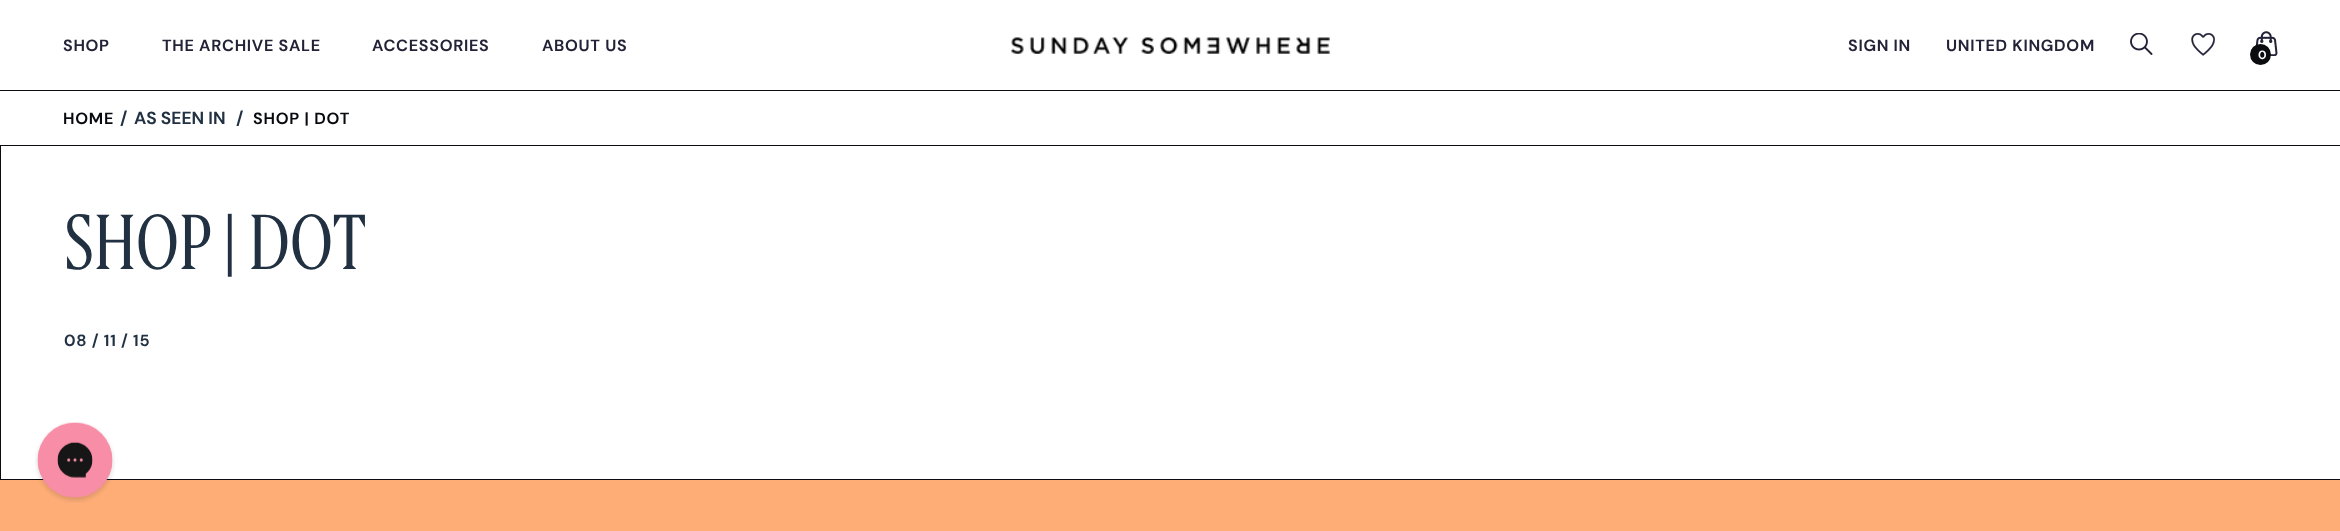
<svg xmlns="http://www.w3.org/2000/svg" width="2340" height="531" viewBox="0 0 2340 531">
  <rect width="100%" height="100%" fill="#ffffff"/>
  <rect x="0" y="90" width="2340" height="1" fill="#0a0c11"/>
  <text x="63" y="51" font-family="DM Sans" font-size="16.25" font-weight="bold" letter-spacing="0.7" fill="#232237">SHOP</text>
  <text x="162" y="51" font-family="DM Sans" font-size="16.25" font-weight="bold" letter-spacing="0.7" fill="#232237">THE ARCHIVE SALE</text>
  <text x="372" y="51" font-family="DM Sans" font-size="16.25" font-weight="bold" letter-spacing="0.7" fill="#232237">ACCESSORIES</text>
  <text x="542" y="51" font-family="DM Sans" font-size="16.25" font-weight="bold" letter-spacing="0.7" fill="#232237">ABOUT US</text>
  <image x="1011" y="37" width="319" height="17" href="img1.png"/>
  <text x="1848" y="51" font-family="DM Sans" font-size="16.25" font-weight="bold" letter-spacing="0.7" fill="#232237">SIGN IN</text>
  <text x="1946" y="51" font-family="DM Sans" font-size="16.25" font-weight="bold" letter-spacing="0.7" fill="#232237">UNITED KINGDOM</text>
  <image x="2130" y="33" width="23" height="22" href="img2.png"/>
  <image x="2191" y="33" width="24" height="23" href="img3.png"/>
  <image x="2255" y="31" width="23" height="25" href="img4.png"/>
  <circle cx="2260.5" cy="54.5" r="10.5" fill="#0a0c10"/>
  <text x="2258" y="59" font-family="DM Sans" font-size="12" font-weight="bold" letter-spacing="0.7" fill="#ffffff">0</text>
  <rect x="0" y="145" width="2340" height="1" fill="#0a0c11"/>
  <text x="63" y="124" font-family="DM Sans" font-size="16.25" font-weight="bold" letter-spacing="0.75" fill="#080a0f">HOME</text>
  <text x="120" y="124" font-family="DM Sans" font-size="17.5" font-weight="bold" fill="#213142">/</text>
  <text x="134" y="124" font-family="DM Sans" font-size="17.5" font-weight="bold" fill="#213142">AS SEEN IN</text>
  <text x="236" y="124" font-family="DM Sans" font-size="17.5" font-weight="bold" fill="#213142">/</text>
  <text x="253" y="124" font-family="DM Sans" font-size="16.25" font-weight="bold" letter-spacing="0.75" fill="#080a0f">SHOP | DOT</text>
  <rect x="0" y="146" width="1" height="333" fill="#0a0c11"/>
  <text x="64" y="269" font-family="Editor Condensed" font-size="72.5" letter-spacing="0.7" fill="#213142">SHOP | DOT</text>
  <text x="64" y="346" font-family="DM Sans" font-size="16.25" font-weight="bold" letter-spacing="0.7" fill="#213142">08 / 11 / 15</text>
  <rect x="0" y="479" width="2340" height="1" fill="#0a0c11"/>
  <rect x="0" y="480" width="2340" height="51" fill="#fead77"/>
  <image x="35" y="422" width="80" height="81" href="img5.png"/>
</svg>
